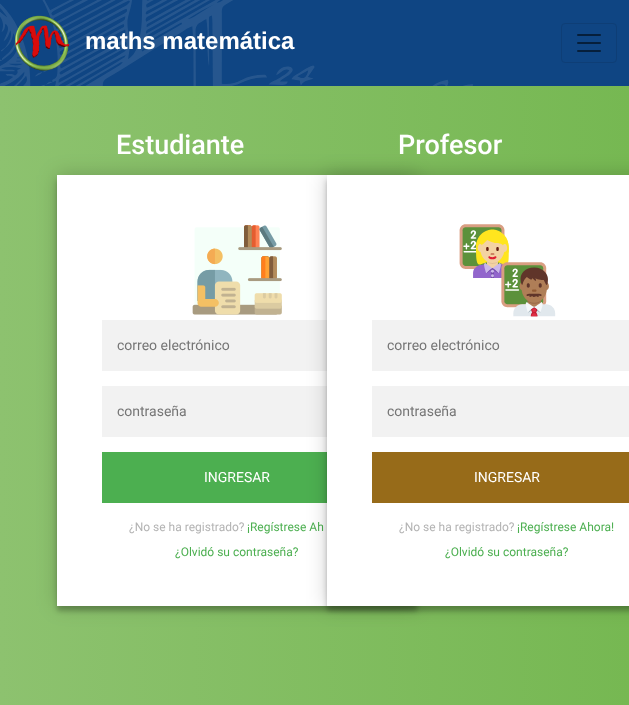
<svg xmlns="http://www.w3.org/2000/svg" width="629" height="705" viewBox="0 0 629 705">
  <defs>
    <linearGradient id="g1" gradientUnits="userSpaceOnUse" x1="629" y1="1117" x2="0" y2="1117"><stop offset="0" stop-color="#76b852"/><stop offset="1" stop-color="#8dc26f"/></linearGradient>
    <filter id="blur1" x="-50%" y="-200%" width="200%" height="500%"><feGaussianBlur stdDeviation="2.5"/></filter>
    <filter id="blur2" x="-50%" y="-200%" width="200%" height="500%"><feGaussianBlur stdDeviation="10"/></filter>
  </defs>
  <rect width="100%" height="100%" fill="#ffffff"/>
  <rect x="0" y="86" width="629" height="619" fill="url(#g1)"/>
  <rect x="0" y="0" width="629" height="86" fill="#0f4583"/>
  <image x="0" y="0" width="473" height="86" href="img1.png"/>
  <image x="15" y="15" width="55" height="56" href="img2.png"/>
  <text x="85" y="49" font-family="Liberation Sans" font-size="24" font-weight="bold" fill="#ffffff">maths matemática</text>
  <rect x="561.5" y="23.5" width="55" height="39" rx="3.5" fill="none" stroke="#0e3e76"/>
  <image x="577" y="34" width="24" height="18" href="img3.png"/>
  <text x="116" y="154" font-family="Roboto" font-size="27" font-weight="500" fill="#ffffff">Estudiante</text>
  <rect x="57" y="180" width="360" height="431" fill="#000000" fill-opacity="0.24" filter="url(#blur1)"/>
  <rect x="57" y="175" width="360" height="431" fill="#000000" fill-opacity="0.2" filter="url(#blur2)"/>
  <rect x="57" y="175" width="270" height="431" fill="#ffffff"/>
  <image x="192" y="225" width="90" height="90" href="img4.png"/>
  <rect x="102" y="320" width="225" height="51" fill="#f2f2f2"/>
  <text x="117" y="350" font-family="Roboto" font-size="14" fill="#757575">correo electrónico</text>
  <rect x="102" y="386" width="225" height="51" fill="#f2f2f2"/>
  <text x="117" y="416" font-family="Roboto" font-size="14" fill="#757575">contraseña</text>
  <rect x="102" y="452" width="225" height="51" fill="#4caf50"/>
  <text x="204" y="482" font-family="Roboto" font-size="14" fill="#ffffff">INGRESAR</text>
  <text x="129" y="531" font-family="Roboto" font-size="12" fill="#b3b3b3">¿No se ha registrado?</text>
  <text x="247" y="531" font-family="Roboto" font-size="12" fill="#4caf50">¡Regístrese Ah</text>
  <text x="175" y="556" font-family="Roboto" font-size="12" fill="#4caf50">¿Olvidó su contraseña?</text>
  <text x="398" y="154" font-family="Roboto" font-size="27" font-weight="500" fill="#ffffff">Profesor</text>
  <rect x="327" y="180" width="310" height="431" fill="#000000" fill-opacity="0.24" filter="url(#blur1)"/>
  <rect x="327" y="175" width="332" height="431" fill="#000000" fill-opacity="0.2" filter="url(#blur2)"/>
  <rect x="327" y="175" width="302" height="431" fill="#ffffff"/>
  <image x="459" y="224" width="97" height="93" href="img5.png"/>
  <rect x="372" y="320" width="257" height="51" fill="#f2f2f2"/>
  <text x="387" y="350" font-family="Roboto" font-size="14" fill="#757575">correo electrónico</text>
  <rect x="372" y="386" width="257" height="51" fill="#f2f2f2"/>
  <text x="387" y="416" font-family="Roboto" font-size="14" fill="#757575">contraseña</text>
  <rect x="372" y="452" width="257" height="51" fill="#976b19"/>
  <text x="474" y="482" font-family="Roboto" font-size="14" fill="#ffffff">INGRESAR</text>
  <text x="399" y="531" font-family="Roboto" font-size="12" fill="#b3b3b3">¿No se ha registrado?</text>
  <text x="517" y="531" font-family="Roboto" font-size="12" fill="#4caf50">¡Regístrese Ahora!</text>
  <text x="445" y="556" font-family="Roboto" font-size="12" fill="#4caf50">¿Olvidó su contraseña?</text>
</svg>
